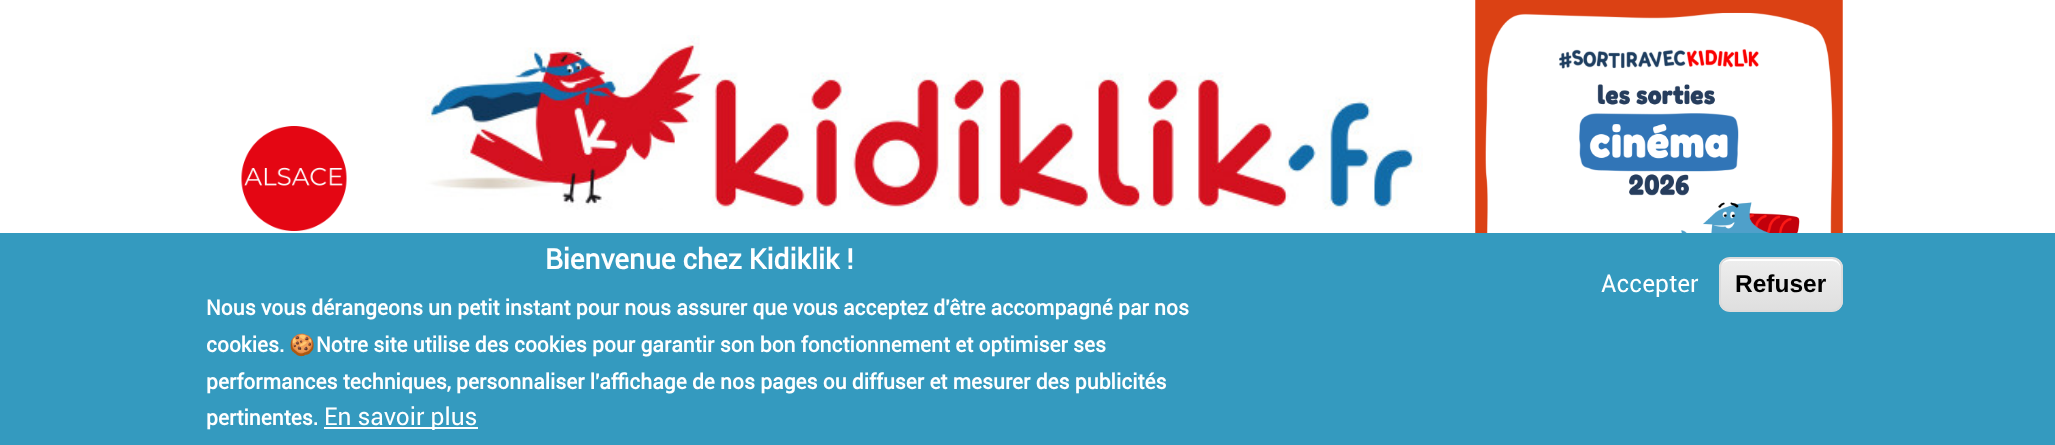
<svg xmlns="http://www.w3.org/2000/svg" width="2055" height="445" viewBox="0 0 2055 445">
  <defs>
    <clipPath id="clip1"><rect x="1719" y="257" width="124" height="55" rx="11"/></clipPath>
    <linearGradient id="g1" gradientUnits="userSpaceOnUse" x1="1781" y1="259" x2="1781" y2="310"><stop offset="0.05" stop-color="#ededed"/><stop offset="1" stop-color="#dfdfdf"/></linearGradient>
  </defs>
  <rect width="100%" height="100%" fill="#ffffff"/>
  <image x="241" y="126" width="106" height="105" href="img1.png"/>
  <image x="425" y="35" width="998" height="175" href="img2.png"/>
  <image x="1475" y="0" width="368" height="233" href="img3.png"/>
  <rect x="0" y="233" width="2055" height="212" fill="#349abf"/>
  <text x="545" y="269" font-family="Roboto" font-size="28" font-weight="bold" fill="#ffffff">Bienvenue chez Kidiklik !</text>
  <text x="206" y="315" font-family="Roboto" font-size="21" font-weight="bold" fill="#ffffff">Nous vous dérangeons un petit instant pour nous assurer que vous acceptez d'être accompagné par nos</text>
  <text x="206" y="352" font-family="Roboto" font-size="21" font-weight="bold" fill="#ffffff">cookies.</text>
  <text x="289" y="352" font-family="Noto Color Emoji" font-size="21" font-weight="bold" fill="#ffffff">🍪</text>
  <text x="316" y="352" font-family="Roboto" font-size="21" font-weight="bold" fill="#ffffff">Notre site utilise des cookies pour garantir son bon fonctionnement et optimiser ses</text>
  <text x="206" y="389" font-family="Roboto" font-size="21" font-weight="bold" fill="#ffffff">performances techniques, personnaliser l'affichage de nos pages ou diffuser et mesurer des publicités</text>
  <text x="206" y="425" font-family="Roboto" font-size="21" font-weight="bold" fill="#ffffff">pertinentes.</text>
  <rect x="324" y="427" width="154" height="2" fill="#ffffff"/>
  <text x="324" y="425" font-family="Roboto" font-size="24.5" fill="#ffffff">En savoir plus</text>
  <text x="1601" y="292" font-family="Roboto" font-size="24.5" fill="#ffffff">Accepter</text>
  <g clip-path="url(#clip1)">
    <rect x="1719" y="259" width="124" height="51" fill="url(#g1)"/>
  </g>
  <path d="M1729 261H1832C1837 261 1841 265 1841 270C1841 255 1826 259 1815 259H1746C1735 259 1720 255 1720 270C1720 265 1724 261 1729 261Z" fill="#ffffff"/>
  <rect x="1720" y="258" width="122" height="53" rx="10" fill="none" stroke="#dcdcdc" stroke-width="2"/>
  <text x="1735" y="292" font-family="Liberation Sans" font-size="24.5" font-weight="bold" fill="#000000">Refuser</text>
</svg>
